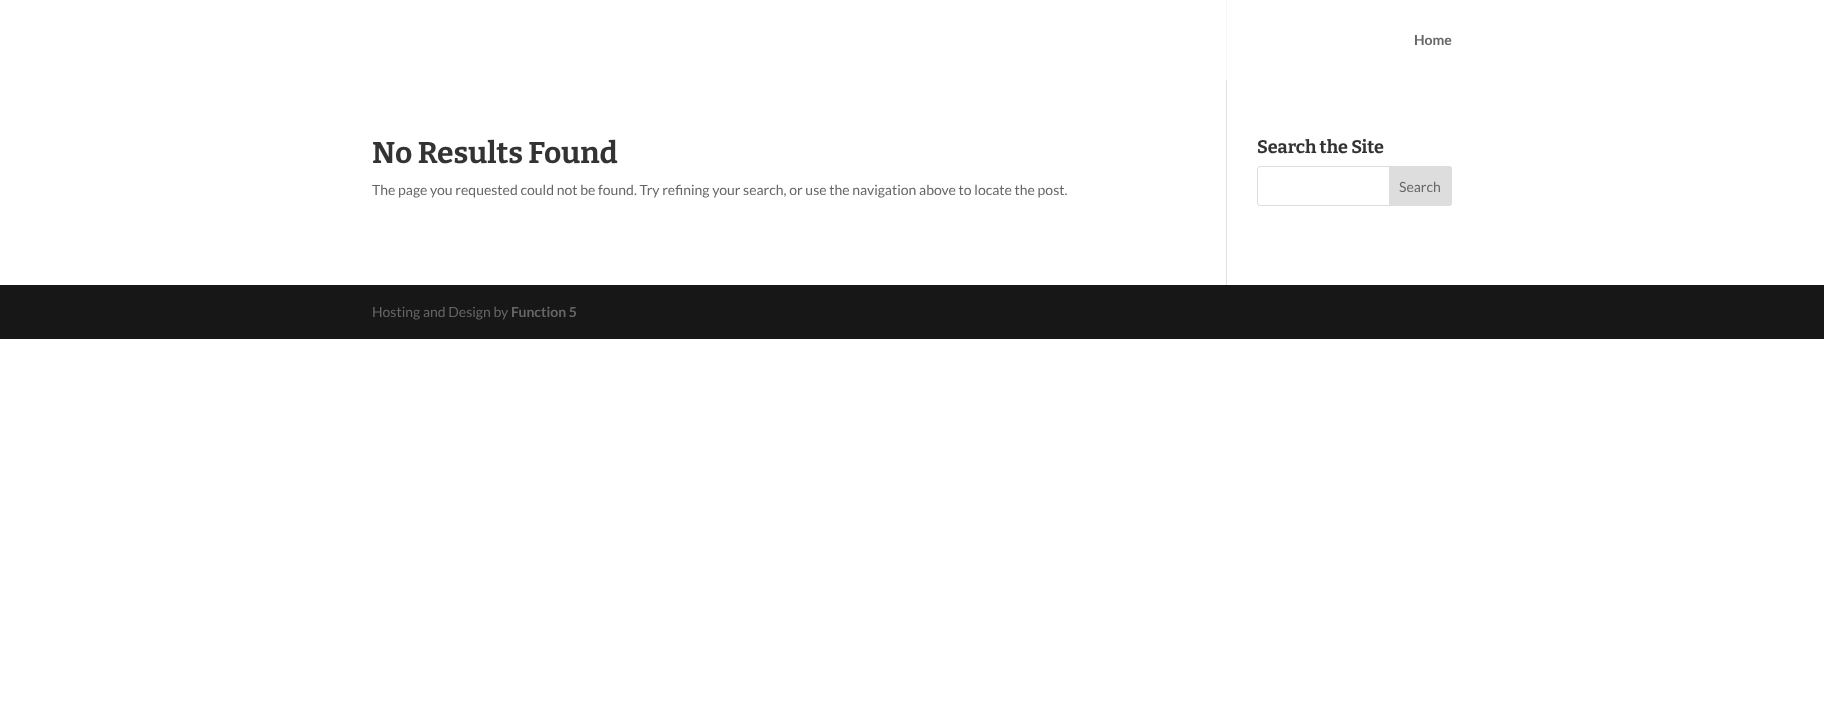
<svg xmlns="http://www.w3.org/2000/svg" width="1824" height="709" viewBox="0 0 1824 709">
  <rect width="100%" height="100%" fill="#ffffff"/>
  <text x="1414" y="45" font-family="Lato" font-size="14" font-weight="bold" fill="#666666">Home</text>
  <rect x="1226" y="80" width="1" height="205" fill="#e2e2e2"/>
  <rect x="1226" y="0" width="1" height="80" fill="#f6f6f6"/>
  <text x="372" y="163" font-family="Bitter" font-size="30" font-weight="bold" fill="#333333">No Results Found</text>
  <text x="372" y="195" font-family="Lato" font-size="14" fill="#666666">The page you requested could not be found. Try refining your search, or use the navigation above to locate the post.</text>
  <text x="1257" y="153" font-family="Bitter" font-size="18" font-weight="bold" fill="#333333">Search the Site</text>
  <rect x="1257.5" y="166.5" width="194" height="39" rx="2.5" fill="none" stroke="#dddddd"/>
  <path d="M1389.5 166.5H1449C1450.5 166.5 1451.5 167.5 1451.5 169V203C1451.5 204.5 1450.5 205.5 1449 205.5H1389.5Z" fill="#dddddd" stroke="#dddddd"/>
  <text x="1399" y="192" font-family="Lato" font-size="14" fill="#666666">Search</text>
  <rect x="0" y="285" width="1824" height="54" fill="#171717"/>
  <text x="372" y="317" font-family="Lato" font-size="14" fill="#666666">Hosting and Design by</text>
  <text x="511" y="317" font-family="Lato" font-size="14" font-weight="bold" fill="#666666">Function 5</text>
</svg>
